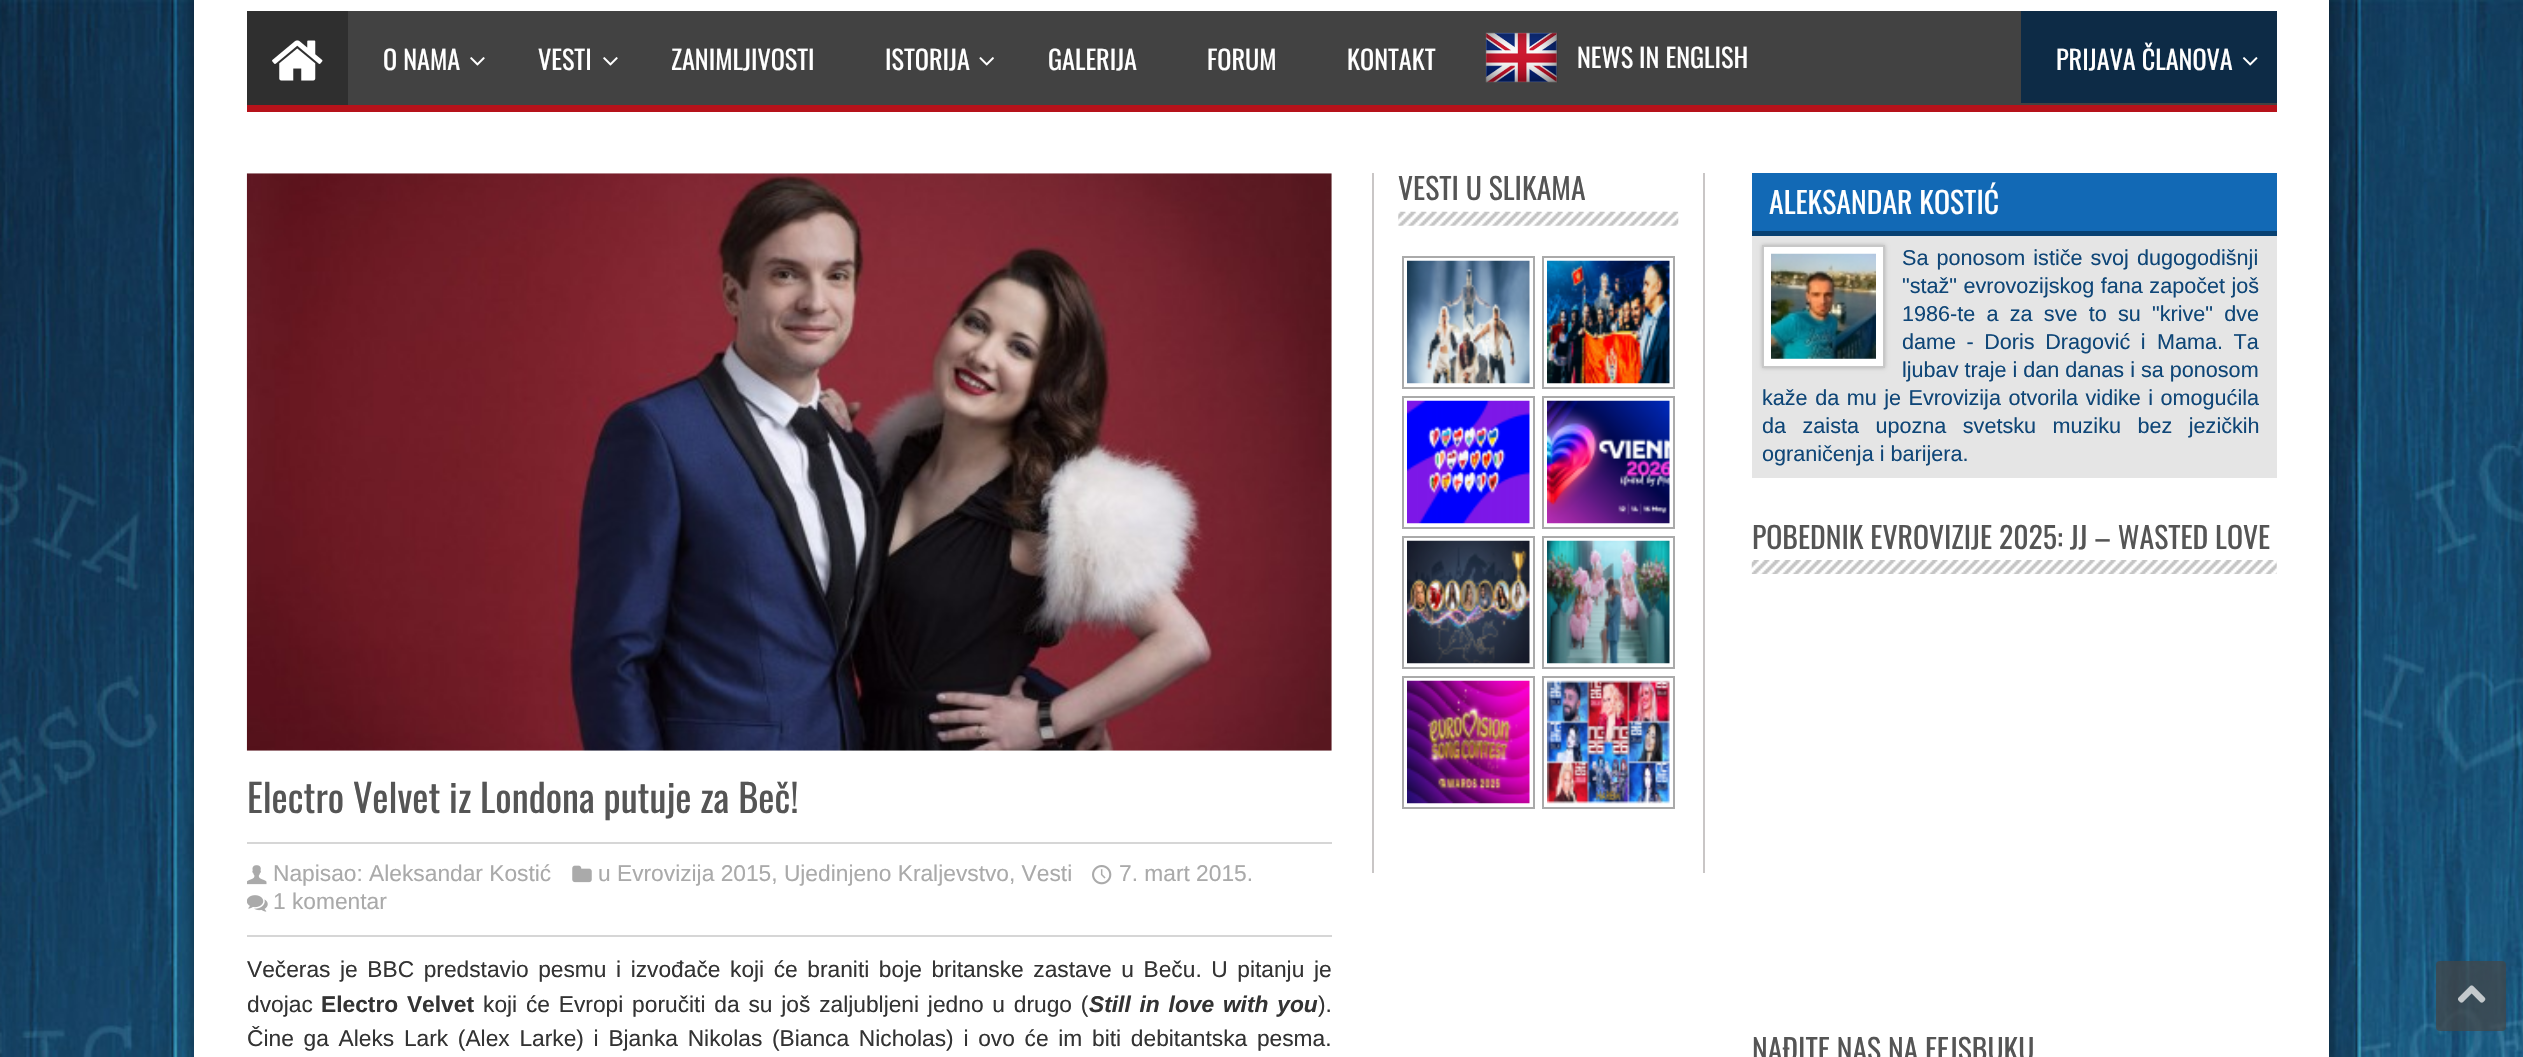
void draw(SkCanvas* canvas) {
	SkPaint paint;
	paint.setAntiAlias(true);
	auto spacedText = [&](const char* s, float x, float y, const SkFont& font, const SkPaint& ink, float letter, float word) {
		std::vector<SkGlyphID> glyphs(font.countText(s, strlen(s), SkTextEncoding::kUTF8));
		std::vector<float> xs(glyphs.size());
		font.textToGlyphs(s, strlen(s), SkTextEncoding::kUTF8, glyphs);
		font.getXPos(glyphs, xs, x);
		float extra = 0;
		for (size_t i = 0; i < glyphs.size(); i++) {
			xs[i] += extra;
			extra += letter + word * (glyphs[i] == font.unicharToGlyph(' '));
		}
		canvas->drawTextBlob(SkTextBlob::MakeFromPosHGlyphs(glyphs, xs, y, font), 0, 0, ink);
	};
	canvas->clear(0xffffffff);
	canvas->drawImageRect(SkImages::DeferredFromEncodedData(SkData::MakeFromFileName("img1.png")), SkRect::MakeXYWH(0, 0, 2523, 1057), SkSamplingOptions());
	paint.setColor(0x80000000);
	paint.setMaskFilter(SkMaskFilter::MakeBlur(kNormal_SkBlurStyle, 9));
	canvas->drawRect(SkRect::MakeXYWH(194, -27, 2135, 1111), paint);
	paint.setMaskFilter(nullptr);
	paint.setColor(0xffffffff);
	canvas->drawRect(SkRect::MakeXYWH(194, 0, 2135, 1057), paint);
	paint.setColor(0xffb6121a);
	canvas->drawRect(SkRect::MakeXYWH(247, 105, 2030, 7), paint);
	paint.setColor(0xff424242);
	canvas->drawRect(SkRect::MakeXYWH(348, 11, 1929, 94), paint);
	paint.setColor(0xff2f2f2f);
	canvas->drawRect(SkRect::MakeXYWH(247, 11, 101, 94), paint);
	canvas->drawImageRect(SkImages::DeferredFromEncodedData(SkData::MakeFromFileName("img2.png")), SkRect::MakeXYWH(272, 40, 51, 41), SkSamplingOptions());
	SkFont f1(fontMgr->matchFamilyStyle("Oswald", SkFontStyle::Normal()), 26.25);
	f1.setSubpixel(true);
	paint.setColor(0xffffffff);
	canvas->drawString("O NAMA", 383, 70, f1, paint);
	canvas->drawImageRect(SkImages::DeferredFromEncodedData(SkData::MakeFromFileName("img3.png")), SkRect::MakeXYWH(470, 57, 15, 9), SkSamplingOptions());
	canvas->drawString("VESTI", 538, 70, f1, paint);
	canvas->drawImageRect(SkImages::DeferredFromEncodedData(SkData::MakeFromFileName("img3.png")), SkRect::MakeXYWH(603, 57, 15, 9), SkSamplingOptions());
	canvas->drawString("ZANIMLJIVOSTI", 671, 70, f1, paint);
	canvas->drawString("ISTORIJA", 885, 70, f1, paint);
	canvas->drawImageRect(SkImages::DeferredFromEncodedData(SkData::MakeFromFileName("img4.png")), SkRect::MakeXYWH(979, 57, 15, 9), SkSamplingOptions());
	canvas->drawString("GALERIJA", 1048, 70, f1, paint);
	canvas->drawString("FORUM", 1207, 70, f1, paint);
	canvas->drawString("KONTAKT", 1347, 70, f1, paint);
	canvas->drawImageRect(SkImages::DeferredFromEncodedData(SkData::MakeFromFileName("img5.png")), SkRect::MakeXYWH(1485, 32, 73, 51), SkSamplingOptions());
	canvas->drawString("NEWS IN ENGLISH", 1577, 68, f1, paint);
	paint.setColor(0xff0d2b46);
	canvas->drawRect(SkRect::MakeXYWH(2021, 11, 256, 92), paint);
	paint.setColor(0xffffffff);
	canvas->drawString("PRIJAVA ČLANOVA", 2056, 70, f1, paint);
	canvas->drawImageRect(SkImages::DeferredFromEncodedData(SkData::MakeFromFileName("img6.png")), SkRect::MakeXYWH(2242, 57, 16, 9), SkSamplingOptions());
	paint.setColor(0xffc9c6c6);
	canvas->drawRect(SkRect::MakeXYWH(1703, 173, 2, 700), paint);
	canvas->drawRect(SkRect::MakeXYWH(1372, 173, 2, 700), paint);
	SkFont f2(fontMgr->matchFamilyStyle("Oswald", SkFontStyle::Normal()), 29.75);
	f2.setSubpixel(true);
	paint.setColor(0xff555555);
	canvas->drawString("VESTI U SLIKAMA", 1398, 200, f2, paint);
	canvas->drawImageRect(SkImages::DeferredFromEncodedData(SkData::MakeFromFileName("img7.png")), SkRect::MakeXYWH(1398, 211, 281, 15), SkSamplingOptions());
	paint.setStroke(true);
	paint.setStrokeWidth(2);
	paint.setColor(0xffaaaaaa);
	canvas->drawRect(SkRect::MakeXYWH(1403, 257, 131, 131), paint);
	canvas->drawImageRect(SkImages::DeferredFromEncodedData(SkData::MakeFromFileName("img8.png")), SkRect::MakeXYWH(1407, 260, 123, 124), SkSamplingOptions());
	canvas->drawRect(SkRect::MakeXYWH(1543, 257, 131, 131), paint);
	canvas->drawImageRect(SkImages::DeferredFromEncodedData(SkData::MakeFromFileName("img9.png")), SkRect::MakeXYWH(1547, 260, 123, 124), SkSamplingOptions());
	canvas->drawRect(SkRect::MakeXYWH(1403, 397, 131, 131), paint);
	canvas->drawImageRect(SkImages::DeferredFromEncodedData(SkData::MakeFromFileName("img10.png")), SkRect::MakeXYWH(1407, 400, 123, 124), SkSamplingOptions());
	canvas->drawRect(SkRect::MakeXYWH(1543, 397, 131, 131), paint);
	canvas->drawImageRect(SkImages::DeferredFromEncodedData(SkData::MakeFromFileName("img11.png")), SkRect::MakeXYWH(1547, 400, 123, 124), SkSamplingOptions());
	canvas->drawRect(SkRect::MakeXYWH(1403, 537, 131, 131), paint);
	canvas->drawImageRect(SkImages::DeferredFromEncodedData(SkData::MakeFromFileName("img12.png")), SkRect::MakeXYWH(1407, 540, 123, 124), SkSamplingOptions());
	canvas->drawRect(SkRect::MakeXYWH(1543, 537, 131, 131), paint);
	canvas->drawImageRect(SkImages::DeferredFromEncodedData(SkData::MakeFromFileName("img13.png")), SkRect::MakeXYWH(1547, 540, 123, 124), SkSamplingOptions());
	canvas->drawRect(SkRect::MakeXYWH(1403, 677, 131, 131), paint);
	canvas->drawImageRect(SkImages::DeferredFromEncodedData(SkData::MakeFromFileName("img14.png")), SkRect::MakeXYWH(1407, 680, 123, 124), SkSamplingOptions());
	canvas->drawRect(SkRect::MakeXYWH(1543, 677, 131, 131), paint);
	canvas->drawImageRect(SkImages::DeferredFromEncodedData(SkData::MakeFromFileName("img15.png")), SkRect::MakeXYWH(1547, 680, 123, 124), SkSamplingOptions());
	canvas->drawImageRect(SkImages::DeferredFromEncodedData(SkData::MakeFromFileName("img16.png")), SkRect::MakeXYWH(246, 173, 1086, 578), SkSamplingOptions());
	SkFont f3(fontMgr->matchFamilyStyle("Oswald", SkFontStyle::Normal()), 38.5);
	f3.setSubpixel(true);
	paint.setStroke(false);
	paint.setColor(0xff555555);
	canvas->drawString("Electro Velvet iz Londona putuje za Beč!", 247, 813, f3, paint);
	paint.setColor(0xffd6d6d6);
	canvas->drawRect(SkRect::MakeXYWH(247, 842, 1085, 2), paint);
	canvas->drawRect(SkRect::MakeXYWH(247, 935, 1085, 2), paint);
	canvas->drawImageRect(SkImages::DeferredFromEncodedData(SkData::MakeFromFileName("img17.png")), SkRect::MakeXYWH(247, 865, 20, 20), SkSamplingOptions());
	SkFont f4(fontMgr->matchFamilyStyle("Liberation Sans", SkFontStyle::Normal()), 22.75);
	f4.setSubpixel(true);
	paint.setColor(0xffaaaaaa);
	canvas->drawString("Napisao: Aleksandar Kostić", 273, 881, f4, paint);
	canvas->drawImageRect(SkImages::DeferredFromEncodedData(SkData::MakeFromFileName("img18.png")), SkRect::MakeXYWH(572, 865, 20, 18), SkSamplingOptions());
	canvas->drawString("u Evrovizija 2015, Ujedinjeno Kraljevstvo, Vesti", 598, 881, f4, paint);
	canvas->drawImageRect(SkImages::DeferredFromEncodedData(SkData::MakeFromFileName("img19.png")), SkRect::MakeXYWH(1092, 865, 20, 20), SkSamplingOptions());
	canvas->drawString("7. mart 2015.", 1119, 881, f4, paint);
	canvas->drawImageRect(SkImages::DeferredFromEncodedData(SkData::MakeFromFileName("img20.png")), SkRect::MakeXYWH(247, 895, 21, 17), SkSamplingOptions());
	canvas->drawString("1 komentar", 273, 909, f4, paint);
	paint.setColor(0xff333333);
	spacedText("Večeras je BBC predstavio pesmu i izvođače koji će braniti boje britanske zastave u Beču. U pitanju je", 247, 977, f4, paint, 0, 3.25);
	canvas->drawString("dvojac", 247, 1012, f4, paint);
	SkFont f5(fontMgr->matchFamilyStyle("Liberation Sans", SkFontStyle::Bold()), 22.75);
	f5.setSubpixel(true);
	spacedText("Electro Velvet", 321, 1012, f5, paint, 0, 2.5);
	spacedText("koji će Evropi poručiti da su još zaljubljeni jedno u drugo (", 483, 1012, f4, paint, 0, 2.5);
	SkFont f6(fontMgr->matchFamilyStyle("Liberation Sans", SkFontStyle::BoldItalic()), 22.75);
	f6.setSubpixel(true);
	spacedText("Still in love with you", 1089, 1012, f6, paint, 0, 2.5);
	canvas->drawString(").", 1318, 1012, f4, paint);
	spacedText("Čine ga Aleks Lark (Alex Larke) i Bjanka Nikolas (Bianca Nicholas) i ovo će im biti debitantska pesma.", 247, 1046, f4, paint, 0, 3.4);
	paint.setColor(0xff1269b5);
	canvas->drawRect(SkRect::MakeXYWH(1752, 173, 525, 58), paint);
	paint.setColor(0xff084172);
	canvas->drawRect(SkRect::MakeXYWH(1752, 231, 525, 5), paint);
	paint.setColor(0xffffffff);
	canvas->drawString("ALEKSANDAR KOSTIĆ", 1769, 214, f2, paint);
	paint.setColor(0xffe5e5e5);
	canvas->drawRect(SkRect::MakeXYWH(1752, 236, 525, 242), paint);
	paint.setColor(0xffb5b5b5);
	paint.setMaskFilter(SkMaskFilter::MakeBlur(kNormal_SkBlurStyle, 2));
	canvas->drawRect(SkRect::MakeXYWH(1762, 245, 123, 123), paint);
	paint.setMaskFilter(nullptr);
	paint.setColor(0xffffffff);
	canvas->drawRect(SkRect::MakeXYWH(1763, 246, 121, 121), paint);
	paint.setStroke(true);
	paint.setColor(0xffc8c8c8);
	canvas->drawRect(SkRect::MakeXYWH(1763, 246, 121, 121), paint);
	canvas->drawImageRect(SkImages::DeferredFromEncodedData(SkData::MakeFromFileName("img21.png")), SkRect::MakeXYWH(1771, 253, 105, 106), SkSamplingOptions());
	SkFont f7(fontMgr->matchFamilyStyle("Liberation Sans", SkFontStyle::Normal()), 21.6);
	f7.setSubpixel(true);
	paint.setStroke(false);
	paint.setColor(0xff0f4677);
	spacedText("Sa ponosom ističe svoj dugogodišnji", 1902, 265, f7, paint, 0, 2);
	spacedText("\"staž\" evrovozijskog fana započet još", 1902, 293, f7, paint, 0, 0.5);
	spacedText("1986-te a za sve to su \"krive\" dve", 1902, 321, f7, paint, 0, 5.25);
	spacedText("dame - Doris Dragović i", 1902, 349, f7, paint, 0, 4.5);
	spacedText("Mama. Ta", 2157, 349, f7, paint, 0, 4.5);
	canvas->drawString("ljubav traje i dan danas i sa ponosom", 1902, 377, f7, paint);
	spacedText("kaže da mu je Evrovizija otvorila vidike i omogućila", 1762, 405, f7, paint, 0, 1.5);
	spacedText("da zaista upozna svetsku muziku bez jezičkih", 1762, 433, f7, paint, 0, 10.5);
	canvas->drawString("ograničenja i barijera.", 1762, 461, f7, paint);
	paint.setColor(0xff555555);
	canvas->drawString("POBEDNIK EVROVIZIJE 2025: JJ – WASTED LOVE", 1752, 549, f2, paint);
	canvas->drawImageRect(SkImages::DeferredFromEncodedData(SkData::MakeFromFileName("img22.png")), SkRect::MakeXYWH(1751, 560, 526, 14), SkSamplingOptions());
	canvas->drawString("NAĐITE NAS NA FEJSBUKU", 1752, 1061, f2, paint);
	paint.setColor(0xb3444444);
	canvas->drawRoundRect(SkRect::MakeXYWH(2436, 961, 70, 70), 4, 4, paint);
	canvas->drawImageRect(SkImages::DeferredFromEncodedData(SkData::MakeFromFileName("img23.png")), SkRect::MakeXYWH(2458, 985, 28, 18), SkSamplingOptions());
}
